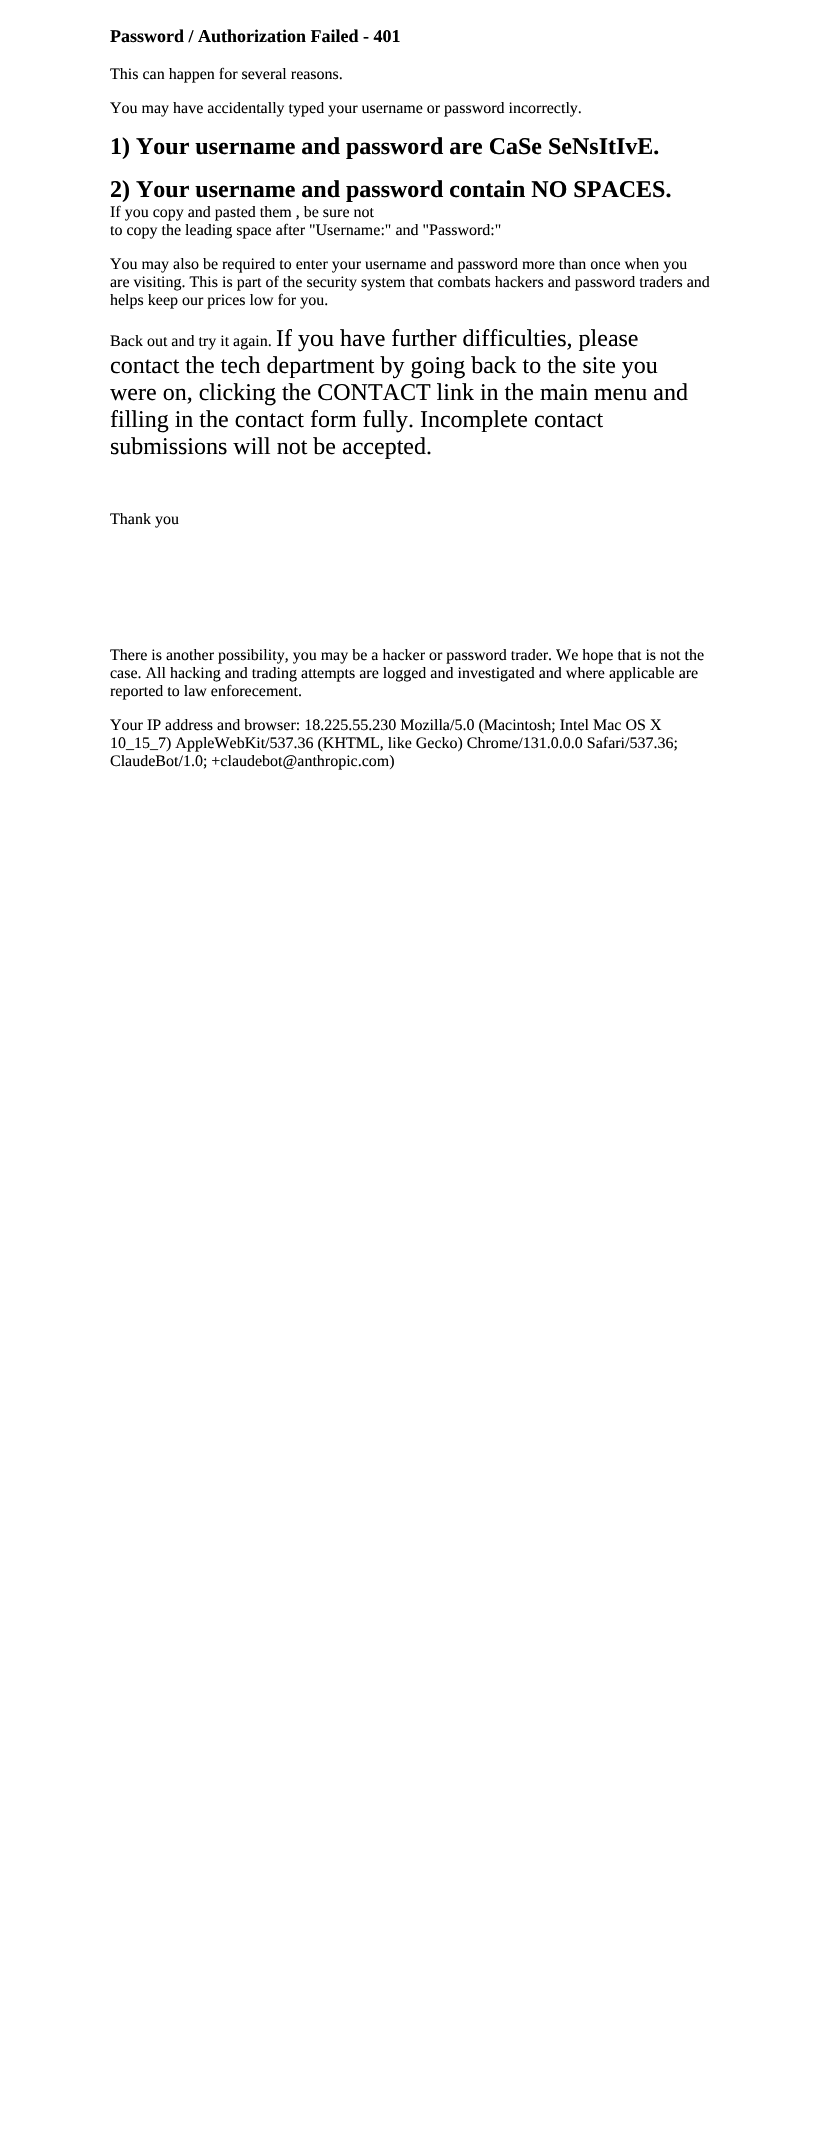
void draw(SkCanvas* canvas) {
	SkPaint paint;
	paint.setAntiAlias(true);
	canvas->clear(0xffffffff);
	SkFont f1(fontMgr->matchFamilyStyle("Liberation Serif", SkFontStyle::Bold()), 18);
	f1.setSubpixel(true);
	paint.setColor(0xff000000);
	canvas->drawString("Password / Authorization Failed - 401", 110, 42, f1, paint);
	SkFont f2(fontMgr->matchFamilyStyle("Liberation Serif", SkFontStyle::Normal()), 16);
	f2.setSubpixel(true);
	canvas->drawString("This can happen for several reasons.", 110, 79, f2, paint);
	canvas->drawString("You may have accidentally typed your username or password incorrectly.", 110, 113, f2, paint);
	SkFont f3(fontMgr->matchFamilyStyle("Liberation Serif", SkFontStyle::Bold()), 24);
	f3.setSubpixel(true);
	canvas->drawString("1) Your username and password are CaSe SeNsItIvE.", 110, 154, f3, paint);
	canvas->drawString("2) Your username and password contain NO SPACES.", 110, 197, f3, paint);
	canvas->drawString("If you copy and pasted them , be sure not", 110, 217, f2, paint);
	canvas->drawString("to copy the leading space after \"Username:\" and \"Password:\"", 110, 235, f2, paint);
	canvas->drawString("You may also be required to enter your username and password more than once when you", 110, 269, f2, paint);
	canvas->drawString("are visiting. This is part of the security system that combats hackers and password traders and", 110, 287, f2, paint);
	canvas->drawString("helps keep our prices low for you.", 110, 305, f2, paint);
	canvas->drawString("Back out and try it again.", 110, 346, f2, paint);
	SkFont f4(fontMgr->matchFamilyStyle("Liberation Serif", SkFontStyle::Normal()), 24);
	f4.setSubpixel(true);
	canvas->drawString("If you have further difficulties, please", 276, 346, f4, paint);
	canvas->drawString("contact the tech department by going back to the site you", 110, 373, f4, paint);
	canvas->drawString("were on, clicking the CONTACT link in the main menu and", 110, 400, f4, paint);
	canvas->drawString("filling in the contact form fully. Incomplete contact", 110, 427, f4, paint);
	canvas->drawString("submissions will not be accepted.", 110, 454, f4, paint);
	canvas->drawString("Thank you", 110, 524, f2, paint);
	canvas->drawString("There is another possibility, you may be a hacker or password trader. We hope that is not the", 110, 660, f2, paint);
	canvas->drawString("case. All hacking and trading attempts are logged and investigated and where applicable are", 110, 678, f2, paint);
	canvas->drawString("reported to law enforecement.", 110, 696, f2, paint);
	canvas->drawString("Your IP address and browser: 18.225.55.230 Mozilla/5.0 (Macintosh; Intel Mac OS X", 110, 730, f2, paint);
	canvas->drawString("10_15_7) AppleWebKit/537.36 (KHTML, like Gecko) Chrome/131.0.0.0 Safari/537.36;", 110, 748, f2, paint);
	canvas->drawString("ClaudeBot/1.0; +claudebot@anthropic.com)", 110, 766, f2, paint);
}
